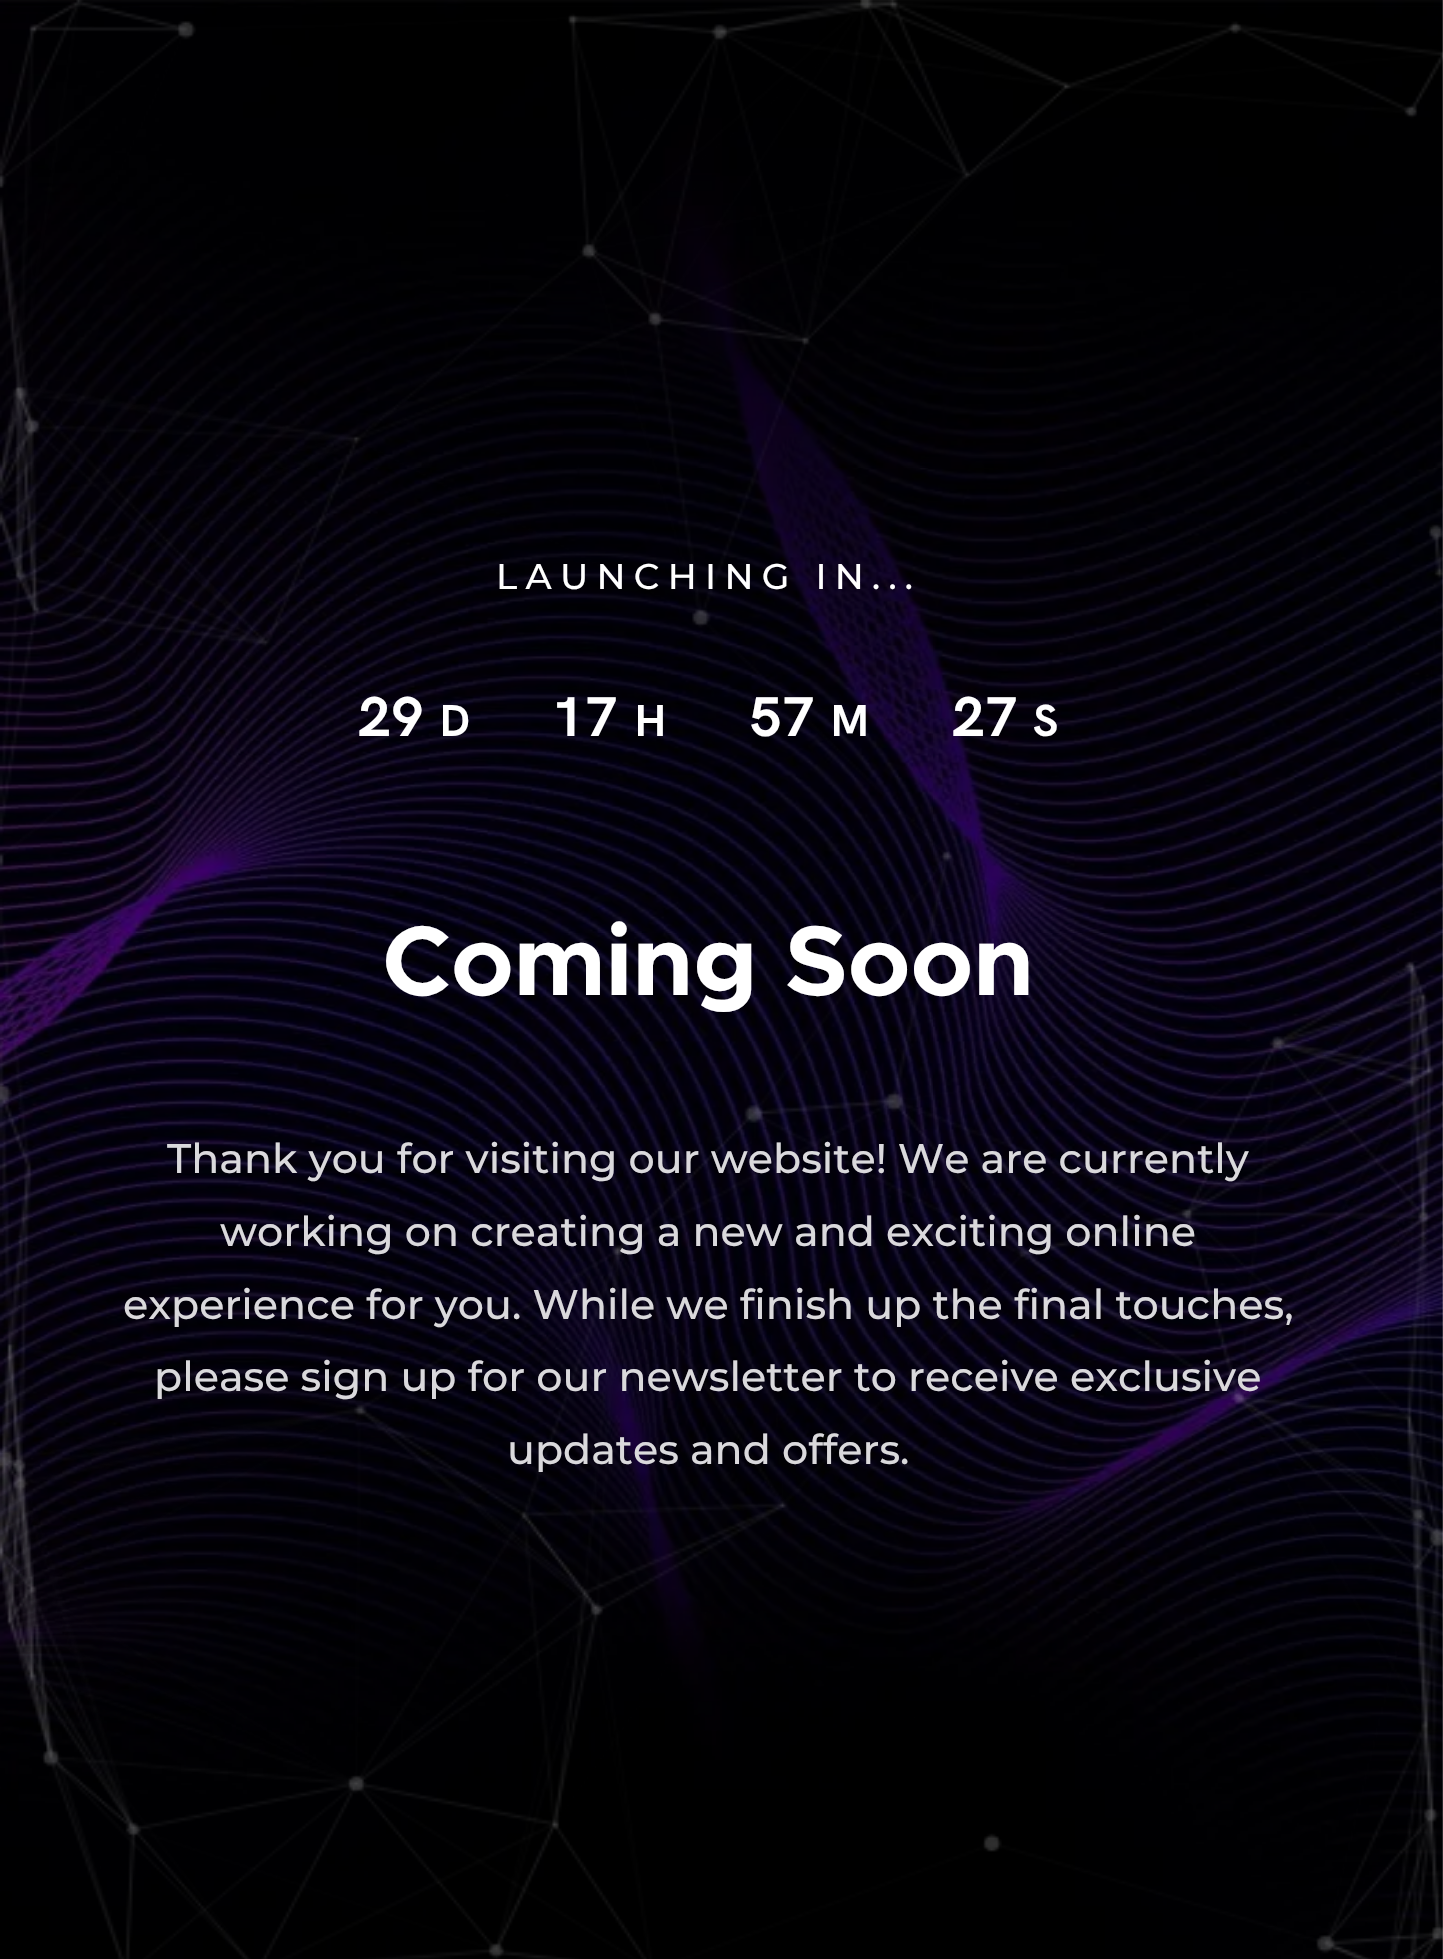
void draw(SkCanvas* canvas) {
	SkPaint paint;
	paint.setAntiAlias(true);
	auto spacedText = [&](const char* s, float x, float y, const SkFont& font, const SkPaint& ink, float letter, float word) {
		std::vector<SkGlyphID> glyphs(font.countText(s, strlen(s), SkTextEncoding::kUTF8));
		std::vector<float> xs(glyphs.size());
		font.textToGlyphs(s, strlen(s), SkTextEncoding::kUTF8, glyphs);
		font.getXPos(glyphs, xs, x);
		float extra = 0;
		for (size_t i = 0; i < glyphs.size(); i++) {
			xs[i] += extra;
			extra += letter + word * (glyphs[i] == font.unicharToGlyph(' '));
		}
		canvas->drawTextBlob(SkTextBlob::MakeFromPosHGlyphs(glyphs, xs, y, font), 0, 0, ink);
	};
	canvas->clear(0xffffffff);
	canvas->drawImageRect(SkImages::DeferredFromEncodedData(SkData::MakeFromFileName("img1.png")), SkRect::MakeXYWH(0, 0, 1443, 1959), SkSamplingOptions());
	canvas->drawImageRect(SkImages::DeferredFromEncodedData(SkData::MakeFromFileName("img2.png")), SkRect::MakeXYWH(0, 0, 1443, 1959), SkSamplingOptions());
	SkFont f1(fontMgr->matchFamilyStyle("Montserrat", SkFontStyle(100, SkFontStyle::kNormal_Width, SkFontStyle::kUpright_Slant)), 35.75);
	f1.setSubpixel(true);
	paint.setColor(0xffffffff);
	spacedText("LAUNCHING IN...", 496, 589, f1, paint, 8.25, 0);
	SkFont f2(fontMgr->matchFamilyStyle("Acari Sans", SkFontStyle::Bold()), 55);
	f2.setSubpixel(true);
	canvas->drawString("29", 358, 736, f2, paint);
	SkFont f3(fontMgr->matchFamilyStyle("Acari Sans", SkFontStyle::Bold()), 44);
	f3.setSubpixel(true);
	canvas->drawString("D", 439, 736, f3, paint);
	canvas->drawString("17", 552, 736, f2, paint);
	canvas->drawString("H", 634, 736, f3, paint);
	canvas->drawString("57", 749, 736, f2, paint);
	canvas->drawString("M", 830, 736, f3, paint);
	canvas->drawString("27", 952, 736, f2, paint);
	canvas->drawString("S", 1033, 736, f3, paint);
	SkFont f4(fontMgr->matchFamilyStyle("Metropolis", SkFontStyle::Bold()), 99);
	f4.setSubpixel(true);
	canvas->drawString("Coming Soon", 382, 995, f4, paint);
	SkFont f5(fontMgr->matchFamilyStyle("Montserrat", SkFontStyle(100, SkFontStyle::kNormal_Width, SkFontStyle::kUpright_Slant)), 41.25);
	f5.setSubpixel(true);
	paint.setColor(0xffdad9dc);
	canvas->drawString("Thank you for visiting our website! We are currently", 167, 1173, f5, paint);
	canvas->drawString("working on creating a new and exciting online", 220, 1246, f5, paint);
	canvas->drawString("experience for you. While we finish up the final touches,", 123, 1319, f5, paint);
	canvas->drawString("please sign up for our newsletter to receive exclusive", 154, 1391, f5, paint);
	canvas->drawString("updates and offers.", 507, 1464, f5, paint);
}
